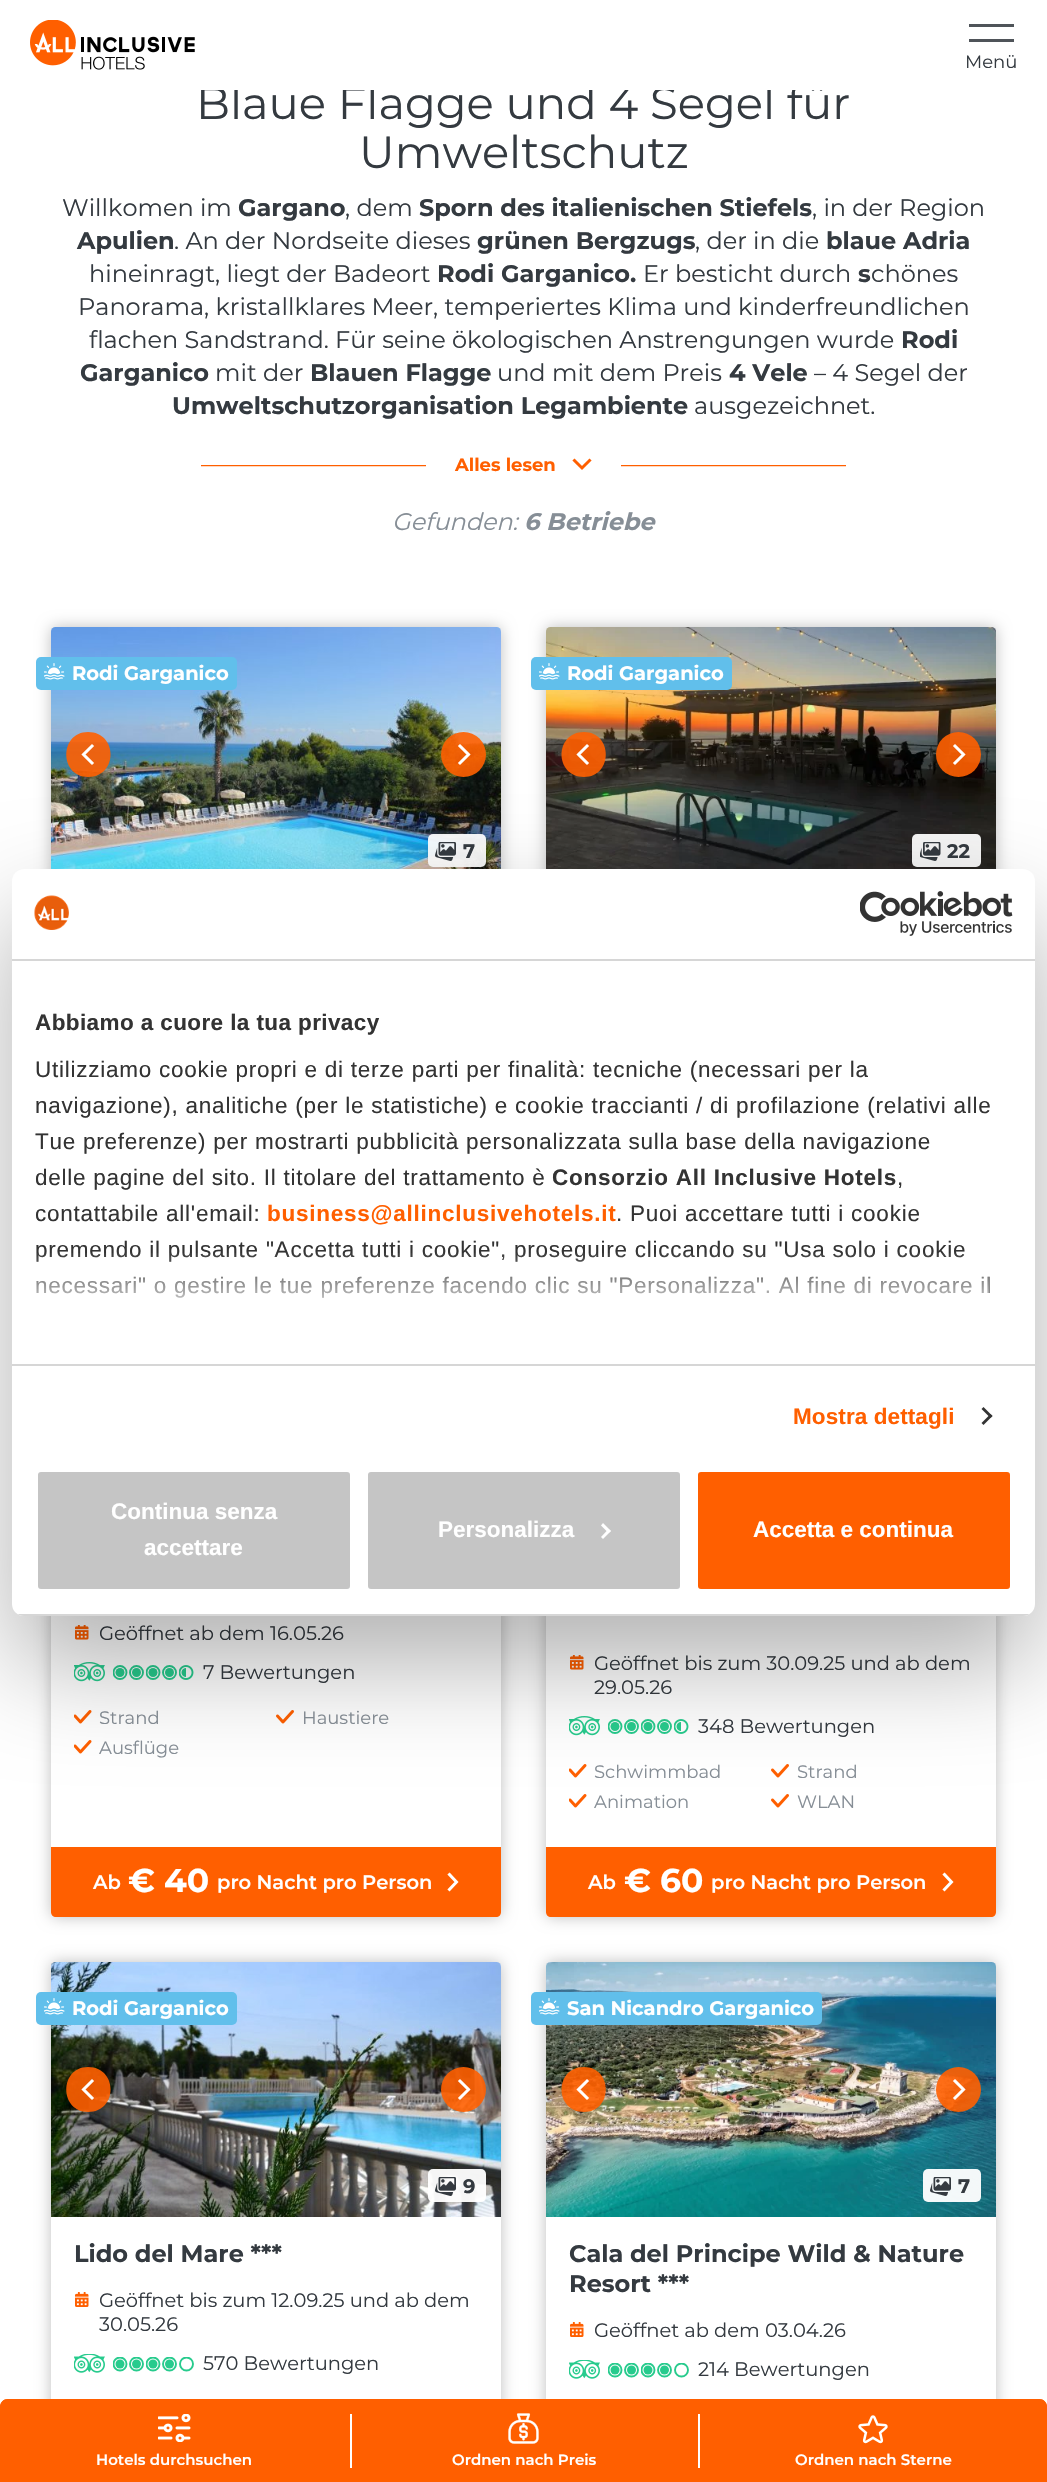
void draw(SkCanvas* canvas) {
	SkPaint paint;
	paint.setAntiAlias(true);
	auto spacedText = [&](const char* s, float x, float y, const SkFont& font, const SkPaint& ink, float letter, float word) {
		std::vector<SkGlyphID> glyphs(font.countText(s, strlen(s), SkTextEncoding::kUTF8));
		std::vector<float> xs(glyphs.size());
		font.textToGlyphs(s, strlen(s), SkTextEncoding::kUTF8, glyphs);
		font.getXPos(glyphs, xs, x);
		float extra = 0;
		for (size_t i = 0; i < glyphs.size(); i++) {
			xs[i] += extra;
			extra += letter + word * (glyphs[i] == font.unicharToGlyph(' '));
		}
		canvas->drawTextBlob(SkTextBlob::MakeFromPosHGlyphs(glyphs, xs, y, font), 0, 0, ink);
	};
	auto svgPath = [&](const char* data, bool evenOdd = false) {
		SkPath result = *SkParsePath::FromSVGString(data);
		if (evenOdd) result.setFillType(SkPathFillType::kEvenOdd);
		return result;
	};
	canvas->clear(0xffffffff);
	SkFont f1(fontMgr->matchFamilyStyle("Montserrat", SkFontStyle::Normal()), 45);
	f1.setSubpixel(true);
	paint.setColor(0xff343a40);
	canvas->drawString("Blaue Flagge und 4 Segel für", 196, 119, f1, paint);
	paint.setColor(0xffffffff);
	canvas->drawRect(SkRect::MakeXYWH(201, 85, 623, 5), paint);
	canvas->drawImageRect(SkImages::DeferredFromEncodedData(SkData::MakeFromFileName("img1.png")), SkRect::MakeXYWH(30, 20, 165, 50), SkSamplingOptions());
	paint.setColor(0xff4f5459);
	canvas->drawRect(SkRect::MakeXYWH(969, 24, 45, 3), paint);
	canvas->drawRect(SkRect::MakeXYWH(969, 39, 45, 3), paint);
	SkFont f2(fontMgr->matchFamilyStyle("Montserrat", SkFontStyle::Normal()), 18);
	f2.setSubpixel(true);
	paint.setColor(0xff343a40);
	canvas->drawString("Menü", 965, 68, f2, paint);
	canvas->drawString("Umweltschutz", 359, 168, f1, paint);
	SkFont f3(fontMgr->matchFamilyStyle("Montserrat", SkFontStyle::Normal()), 24);
	f3.setSubpixel(true);
	canvas->drawString("Willkomen im", 62, 216, f3, paint);
	SkFont f4(fontMgr->matchFamilyStyle("Montserrat", SkFontStyle::Bold()), 24);
	f4.setSubpixel(true);
	canvas->drawString("Gargano", 238, 216, f4, paint);
	canvas->drawString(", dem", 345, 216, f3, paint);
	canvas->drawString("Sporn des italienischen Stiefels", 419, 216, f4, paint);
	canvas->drawString(", in der Region", 812, 216, f3, paint);
	canvas->drawString("Apulien", 77, 249, f4, paint);
	canvas->drawString(". An der Nordseite dieses", 174, 249, f3, paint);
	canvas->drawString("grünen Bergzugs", 477, 249, f4, paint);
	canvas->drawString(", der in die", 695, 249, f3, paint);
	canvas->drawString("blaue Adria", 826, 249, f4, paint);
	canvas->drawString("hineinragt, liegt der Badeort", 89, 282, f3, paint);
	canvas->drawString("Rodi Garganico.", 437, 282, f4, paint);
	canvas->drawString("Er besticht durch", 643, 282, f3, paint);
	canvas->drawString("s", 858, 282, f4, paint);
	canvas->drawString("chönes", 871, 282, f3, paint);
	canvas->drawString("Panorama, kristallklares Meer, temperiertes Klima und kinderfreundlichen", 78, 315, f3, paint);
	canvas->drawString("flachen Sandstrand. Für seine ökologischen Anstrengungen wurde", 89, 348, f3, paint);
	canvas->drawString("Rodi", 901, 348, f4, paint);
	canvas->drawString("Garganico", 80, 381, f4, paint);
	canvas->drawString("mit der", 215, 381, f3, paint);
	canvas->drawString("Blauen Flagge", 310, 381, f4, paint);
	canvas->drawString("und mit dem Preis", 497, 381, f3, paint);
	canvas->drawString("4 Vele", 729, 381, f4, paint);
	canvas->drawString("– 4 Segel der", 814, 381, f3, paint);
	canvas->drawString("Umweltschutzorganisation Legambiente", 172, 414, f4, paint);
	canvas->drawString("ausgezeichnet.", 694, 414, f3, paint);
	canvas->drawImageRect(SkImages::DeferredFromEncodedData(SkData::MakeFromFileName("img2.png")), SkRect::MakeXYWH(201, 465, 645, 2), SkSamplingOptions());
	SkFont f5(fontMgr->matchFamilyStyle("Montserrat", SkFontStyle::Bold()), 18);
	f5.setSubpixel(true);
	paint.setColor(0xffff5f00);
	canvas->drawString("Alles lesen", 455, 471, f5, paint);
	paint.setStroke(true);
	paint.setStrokeWidth(3);
	paint.setStrokeCap(SkPaint::kSquare_Cap);
	canvas->drawPath(svgPath("M589.5 460.5L582 468L574.5 460.5"), paint);
	SkFont f6(fontMgr->matchFamilyStyle("Montserrat", SkFontStyle::Italic()), 24);
	f6.setSubpixel(true);
	paint.setStroke(false);
	paint.setColor(0xff868e96);
	canvas->drawString("Gefunden:", 392, 530, f6, paint);
	SkFont f7(fontMgr->matchFamilyStyle("Montserrat", SkFontStyle::BoldItalic()), 24);
	f7.setSubpixel(true);
	canvas->drawString("6 Betriebe", 524, 530, f7, paint);
	paint.setColor(0x40000000);
	paint.setMaskFilter(SkMaskFilter::MakeBlur(kNormal_SkBlurStyle, 7.5));
	canvas->drawRoundRect(SkRect::MakeXYWH(51, 1962, 450, 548), 5, 5, paint);
	paint.setMaskFilter(nullptr);
	paint.setColor(0xffffffff);
	canvas->drawRoundRect(SkRect::MakeXYWH(51, 1962, 450, 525), 5, 5, paint);
	paint.setColor(0x40000000);
	paint.setMaskFilter(SkMaskFilter::MakeBlur(kNormal_SkBlurStyle, 7.5));
	canvas->drawRoundRect(SkRect::MakeXYWH(546, 1962, 450, 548), 5, 5, paint);
	paint.setMaskFilter(nullptr);
	paint.setColor(0xffffffff);
	canvas->drawRoundRect(SkRect::MakeXYWH(546, 1962, 450, 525), 5, 5, paint);
	paint.setColor(0xffff5f00);
	canvas->drawPath(svgPath("M8 2399H1039C1043.5 2399 1047 2402.5 1047 2407V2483H0V2407C0 2402.5 3.5 2399 8 2399Z"), paint);
	canvas->drawPath(svgPath("M8 2399H350V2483H0V2407C0 2402.5 3.5 2399 8 2399Z"), paint);
	canvas->drawImageRect(SkImages::DeferredFromEncodedData(SkData::MakeFromFileName("img3.png")), SkRect::MakeXYWH(158, 2414, 33, 28), SkSamplingOptions());
	SkFont f8(fontMgr->matchFamilyStyle("Montserrat", SkFontStyle(600, SkFontStyle::kNormal_Width, SkFontStyle::kUpright_Slant)), 15);
	f8.setSubpixel(true);
	paint.setColor(0xffffffff);
	canvas->drawString("Hotels durchsuchen", 96, 2465, f8, paint);
	canvas->drawImageRect(SkImages::DeferredFromEncodedData(SkData::MakeFromFileName("img4.png")), SkRect::MakeXYWH(508, 2413, 31, 31), SkSamplingOptions());
	canvas->drawRect(SkRect::MakeXYWH(350, 2414, 2, 54), paint);
	canvas->drawString("Ordnen nach Preis", 452, 2465, f8, paint);
	paint.setColor(0xffff5f00);
	canvas->drawPath(svgPath("M698 2399H1039C1043.5 2399 1047 2402.5 1047 2407V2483H698Z"), paint);
	canvas->drawImageRect(SkImages::DeferredFromEncodedData(SkData::MakeFromFileName("img5.png")), SkRect::MakeXYWH(858, 2415, 30, 29), SkSamplingOptions());
	paint.setColor(0xffffffff);
	canvas->drawRect(SkRect::MakeXYWH(698, 2414, 2, 54), paint);
	canvas->drawString("Ordnen nach Sterne", 795, 2465, f8, paint);
	paint.setColor(0x40000000);
	paint.setMaskFilter(SkMaskFilter::MakeBlur(kNormal_SkBlurStyle, 7.5));
	canvas->drawRoundRect(SkRect::MakeXYWH(51, 627, 450, 623), 5, 5, paint);
	paint.setMaskFilter(nullptr);
	canvas->drawImageRect(SkImages::DeferredFromEncodedData(SkData::MakeFromFileName("img6.png")), SkRect::MakeXYWH(51, 627, 450, 242), SkSamplingOptions());
	paint.setColor(0xff61bfeb);
	canvas->drawRoundRect(SkRect::MakeXYWH(36, 657, 201, 33), 5, 5, paint);
	canvas->drawImageRect(SkImages::DeferredFromEncodedData(SkData::MakeFromFileName("img7.png")), SkRect::MakeXYWH(44, 663, 21, 17), SkSamplingOptions());
	SkFont f9(fontMgr->matchFamilyStyle("Montserrat", SkFontStyle::Bold()), 19.5);
	f9.setSubpixel(true);
	paint.setColor(0xffffffff);
	canvas->drawString("Rodi Garganico", 72, 680, f9, paint);
	paint.setColor(0xe6ff5f00);
	canvas->drawPath(svgPath("M88 777C59 777 59 732 88 732C118 732 118 777 88 777Z"), paint);
	paint.setStroke(true);
	paint.setColor(0xffffffff);
	canvas->drawPath(svgPath("M92 763L83.5 754.5L92 746"), paint);
	paint.setStroke(false);
	paint.setColor(0xe6ff5f00);
	canvas->drawCircle(463.5, 754.5, 22.5, paint);
	paint.setStroke(true);
	paint.setColor(0xffffffff);
	canvas->drawPath(svgPath("M460 746L468.5 754.5L460 763"), paint);
	paint.setStroke(false);
	paint.setColor(0xf2ffffff);
	canvas->drawRoundRect(SkRect::MakeXYWH(428, 834, 58, 33), 5, 5, paint);
	canvas->drawImageRect(SkImages::DeferredFromEncodedData(SkData::MakeFromFileName("img8.png")), SkRect::MakeXYWH(435, 842, 21, 19), SkSamplingOptions());
	paint.setColor(0xff343a40);
	canvas->drawString("7", 463, 858, f9, paint);
	paint.setColor(0x40000000);
	paint.setMaskFilter(SkMaskFilter::MakeBlur(kNormal_SkBlurStyle, 7.5));
	canvas->drawRoundRect(SkRect::MakeXYWH(546, 627, 450, 623), 5, 5, paint);
	paint.setMaskFilter(nullptr);
	canvas->drawImageRect(SkImages::DeferredFromEncodedData(SkData::MakeFromFileName("img9.png")), SkRect::MakeXYWH(546, 627, 450, 242), SkSamplingOptions());
	paint.setColor(0xff61bfeb);
	canvas->drawRoundRect(SkRect::MakeXYWH(531, 657, 201, 33), 5, 5, paint);
	canvas->drawImageRect(SkImages::DeferredFromEncodedData(SkData::MakeFromFileName("img7.png")), SkRect::MakeXYWH(539, 663, 21, 17), SkSamplingOptions());
	paint.setColor(0xffffffff);
	canvas->drawString("Rodi Garganico", 567, 680, f9, paint);
	paint.setColor(0xe6ff5f00);
	canvas->drawPath(svgPath("M584 777C554 777 554 732 584 732C613 732 613 777 584 777Z"), paint);
	paint.setStroke(true);
	paint.setColor(0xffffffff);
	canvas->drawPath(svgPath("M587 763L578.5 754.5L587 746"), paint);
	paint.setStroke(false);
	paint.setColor(0xe6ff5f00);
	canvas->drawCircle(958.5, 754.5, 22.5, paint);
	paint.setStroke(true);
	paint.setColor(0xffffffff);
	canvas->drawPath(svgPath("M955 746L963.5 754.5L955 763"), paint);
	paint.setStroke(false);
	paint.setColor(0xf2ffffff);
	canvas->drawRoundRect(SkRect::MakeXYWH(912, 834, 69, 33), 5, 5, paint);
	canvas->drawImageRect(SkImages::DeferredFromEncodedData(SkData::MakeFromFileName("img10.png")), SkRect::MakeXYWH(920, 842, 21, 19), SkSamplingOptions());
	paint.setColor(0xff343a40);
	canvas->drawString("22", 947, 858, f9, paint);
	paint.setColor(0x40000000);
	paint.setMaskFilter(SkMaskFilter::MakeBlur(kNormal_SkBlurStyle, 7.5));
	canvas->drawRoundRect(SkRect::MakeXYWH(51, 1295, 450, 622), 5, 5, paint);
	paint.setMaskFilter(nullptr);
	paint.setColor(0xffffffff);
	canvas->drawRoundRect(SkRect::MakeXYWH(51, 1295, 450, 622), 5, 5, paint);
	canvas->drawImageRect(SkImages::DeferredFromEncodedData(SkData::MakeFromFileName("img11.png")), SkRect::MakeXYWH(75, 1625, 14, 15), SkSamplingOptions());
	SkFont f10(fontMgr->matchFamilyStyle("Montserrat", SkFontStyle::Normal()), 19.5);
	f10.setSubpixel(true);
	paint.setColor(0xff343a40);
	canvas->drawString("Geöffnet ab dem 16.05.26", 99, 1640, f10, paint);
	canvas->drawImageRect(SkImages::DeferredFromEncodedData(SkData::MakeFromFileName("img12.png")), SkRect::MakeXYWH(74, 1662, 31, 20), SkSamplingOptions());
	canvas->save();
	canvas->clipRect(SkRect::MakeXYWH(113, 1665, 15, 15));
	paint.setStroke(true);
	paint.setStrokeWidth(1.9);
	paint.setStrokeCap(SkPaint::kButt_Cap);
	paint.setColor(0xff27cb8d);
	canvas->drawCircle(120, 1672.5, 6.5, paint);
	canvas->restore();
	canvas->drawCircle(136.5, 1672.5, 6.5, paint);
	canvas->save();
	canvas->clipRect(SkRect::MakeXYWH(146, 1665, 15, 15));
	canvas->drawCircle(153, 1672.5, 6.5, paint);
	canvas->restore();
	canvas->drawCircle(169.5, 1672.5, 6.5, paint);
	canvas->drawImageRect(SkImages::DeferredFromEncodedData(SkData::MakeFromFileName("img13.png")), SkRect::MakeXYWH(179, 1665, 15, 15), SkSamplingOptions());
	paint.setStroke(false);
	paint.setColor(0xff343a40);
	canvas->drawString("7 Bewertungen", 203, 1679, f10, paint);
	paint.setColor(0xff27cb8d);
	canvas->drawCircle(120, 1672.5, 4.5, paint);
	canvas->drawCircle(136.5, 1672.5, 4.5, paint);
	canvas->drawCircle(153, 1672.5, 4.5, paint);
	canvas->drawCircle(169.5, 1672.5, 4.5, paint);
	canvas->drawImageRect(SkImages::DeferredFromEncodedData(SkData::MakeFromFileName("img14.png")), SkRect::MakeXYWH(74, 1710, 18, 14), SkSamplingOptions());
	paint.setColor(0xff868e96);
	canvas->drawString("Strand", 99, 1724, f2, paint);
	canvas->drawImageRect(SkImages::DeferredFromEncodedData(SkData::MakeFromFileName("img15.png")), SkRect::MakeXYWH(276, 1710, 18, 14), SkSamplingOptions());
	canvas->drawString("Haustiere", 302, 1724, f2, paint);
	canvas->drawImageRect(SkImages::DeferredFromEncodedData(SkData::MakeFromFileName("img14.png")), SkRect::MakeXYWH(74, 1740, 18, 14), SkSamplingOptions());
	canvas->drawString("Ausflüge", 99, 1754, f2, paint);
	paint.setColor(0xffff5f00);
	canvas->drawPath(svgPath("M51 1847H501V1912C501 1915 499 1917 496 1917H56C53 1917 51 1915 51 1912Z"), paint);
	SkFont f11(fontMgr->matchFamilyStyle("Montserrat", SkFontStyle(600, SkFontStyle::kNormal_Width, SkFontStyle::kUpright_Slant)), 19.5);
	f11.setSubpixel(true);
	paint.setColor(0xffffffff);
	canvas->drawString("Ab", 93, 1889, f11, paint);
	SkFont f12(fontMgr->matchFamilyStyle("Montserrat", SkFontStyle::Bold()), 33);
	f12.setSubpixel(true);
	canvas->drawString("€ 40", 128, 1892, f12, paint);
	canvas->drawString("pro Nacht pro Person", 217, 1889, f11, paint);
	paint.setStroke(true);
	paint.setStrokeWidth(3);
	paint.setStrokeCap(SkPaint::kSquare_Cap);
	canvas->drawPath(svgPath("M449.5 1874.5L456.5 1882L449.5 1889.5"), paint);
	paint.setStroke(false);
	paint.setColor(0x40000000);
	paint.setMaskFilter(SkMaskFilter::MakeBlur(kNormal_SkBlurStyle, 7.5));
	canvas->drawRoundRect(SkRect::MakeXYWH(546, 1295, 450, 622), 5, 5, paint);
	paint.setMaskFilter(nullptr);
	paint.setColor(0xffffffff);
	canvas->drawRoundRect(SkRect::MakeXYWH(546, 1295, 450, 622), 5, 5, paint);
	canvas->drawImageRect(SkImages::DeferredFromEncodedData(SkData::MakeFromFileName("img11.png")), SkRect::MakeXYWH(570, 1655, 14, 15), SkSamplingOptions());
	paint.setColor(0xff343a40);
	canvas->drawString("Geöffnet bis zum 30.09.25 und ab dem", 594, 1670, f10, paint);
	canvas->drawString("29.05.26", 594, 1694, f10, paint);
	canvas->drawImageRect(SkImages::DeferredFromEncodedData(SkData::MakeFromFileName("img12.png")), SkRect::MakeXYWH(569, 1716, 31, 20), SkSamplingOptions());
	canvas->save();
	canvas->clipRect(SkRect::MakeXYWH(608, 1719, 15, 15));
	paint.setStroke(true);
	paint.setStrokeWidth(1.9);
	paint.setStrokeCap(SkPaint::kButt_Cap);
	paint.setColor(0xff27cb8d);
	canvas->drawCircle(615, 1726.5, 6.5, paint);
	canvas->restore();
	canvas->drawCircle(631.5, 1726.5, 6.5, paint);
	canvas->save();
	canvas->clipRect(SkRect::MakeXYWH(641, 1719, 15, 15));
	canvas->drawCircle(648, 1726.5, 6.5, paint);
	canvas->restore();
	canvas->drawCircle(664.5, 1726.5, 6.5, paint);
	canvas->drawImageRect(SkImages::DeferredFromEncodedData(SkData::MakeFromFileName("img13.png")), SkRect::MakeXYWH(674, 1719, 15, 15), SkSamplingOptions());
	paint.setStroke(false);
	paint.setColor(0xff343a40);
	canvas->drawString("348 Bewertungen", 698, 1733, f10, paint);
	paint.setColor(0xff27cb8d);
	canvas->drawCircle(615, 1726.5, 4.5, paint);
	canvas->drawCircle(631.5, 1726.5, 4.5, paint);
	canvas->drawCircle(648, 1726.5, 4.5, paint);
	canvas->drawCircle(664.5, 1726.5, 4.5, paint);
	canvas->drawImageRect(SkImages::DeferredFromEncodedData(SkData::MakeFromFileName("img14.png")), SkRect::MakeXYWH(569, 1764, 18, 14), SkSamplingOptions());
	paint.setColor(0xff868e96);
	canvas->drawString("Schwimmbad", 594, 1778, f2, paint);
	canvas->drawImageRect(SkImages::DeferredFromEncodedData(SkData::MakeFromFileName("img15.png")), SkRect::MakeXYWH(771, 1764, 18, 14), SkSamplingOptions());
	canvas->drawString("Strand", 797, 1778, f2, paint);
	canvas->drawImageRect(SkImages::DeferredFromEncodedData(SkData::MakeFromFileName("img14.png")), SkRect::MakeXYWH(569, 1794, 18, 14), SkSamplingOptions());
	canvas->drawString("Animation", 594, 1808, f2, paint);
	canvas->drawImageRect(SkImages::DeferredFromEncodedData(SkData::MakeFromFileName("img15.png")), SkRect::MakeXYWH(771, 1794, 18, 14), SkSamplingOptions());
	canvas->drawString("WLAN", 797, 1808, f2, paint);
	paint.setColor(0xffff5f00);
	canvas->drawPath(svgPath("M546 1847H996V1912C996 1915 994 1917 991 1917H551C548 1917 546 1915 546 1912Z"), paint);
	paint.setColor(0xffffffff);
	canvas->drawString("Ab", 588, 1889, f11, paint);
	canvas->drawString("€ 60", 624, 1892, f12, paint);
	canvas->drawString("pro Nacht pro Person", 711, 1889, f11, paint);
	paint.setStroke(true);
	paint.setStrokeWidth(3);
	paint.setStrokeCap(SkPaint::kSquare_Cap);
	canvas->drawPath(svgPath("M944.5 1874.5L951.5 1882L944.5 1889.5"), paint);
	canvas->drawImageRect(SkImages::DeferredFromEncodedData(SkData::MakeFromFileName("img16.png")), SkRect::MakeXYWH(51, 1962, 450, 255), SkSamplingOptions());
	paint.setStroke(false);
	paint.setColor(0xff61bfeb);
	canvas->drawRoundRect(SkRect::MakeXYWH(36, 1992, 201, 33), 5, 5, paint);
	canvas->drawImageRect(SkImages::DeferredFromEncodedData(SkData::MakeFromFileName("img7.png")), SkRect::MakeXYWH(44, 1998, 21, 17), SkSamplingOptions());
	paint.setColor(0xffffffff);
	canvas->drawString("Rodi Garganico", 72, 2015, f9, paint);
	paint.setColor(0xe6ff5f00);
	canvas->drawPath(svgPath("M88 2112C59 2112 59 2067 88 2067C118 2067 118 2112 88 2112Z"), paint);
	paint.setStroke(true);
	paint.setColor(0xffffffff);
	canvas->drawPath(svgPath("M92 2098L83.5 2089.5L92 2081"), paint);
	paint.setStroke(false);
	paint.setColor(0xe6ff5f00);
	canvas->drawCircle(463.5, 2089.5, 22.5, paint);
	paint.setStroke(true);
	paint.setColor(0xffffffff);
	canvas->drawPath(svgPath("M460 2081L468.5 2089.5L460 2098"), paint);
	paint.setStroke(false);
	paint.setColor(0xf2ffffff);
	canvas->drawRoundRect(SkRect::MakeXYWH(428, 2169, 58, 33), 5, 5, paint);
	canvas->drawImageRect(SkImages::DeferredFromEncodedData(SkData::MakeFromFileName("img17.png")), SkRect::MakeXYWH(435, 2177, 21, 19), SkSamplingOptions());
	paint.setColor(0xff343a40);
	canvas->drawString("9", 463, 2193, f9, paint);
	canvas->drawString("Lido del Mare ***", 74, 2262, f4, paint);
	canvas->drawImageRect(SkImages::DeferredFromEncodedData(SkData::MakeFromFileName("img18.png")), SkRect::MakeXYWH(75, 2292, 14, 15), SkSamplingOptions());
	canvas->drawString("Geöffnet bis zum 12.09.25 und ab dem", 99, 2307, f10, paint);
	canvas->drawString("30.05.26", 99, 2331, f10, paint);
	canvas->drawImageRect(SkImages::DeferredFromEncodedData(SkData::MakeFromFileName("img19.png")), SkRect::MakeXYWH(74, 2354, 31, 19), SkSamplingOptions());
	canvas->save();
	canvas->clipRect(SkRect::MakeXYWH(113, 2357, 15, 15));
	paint.setStroke(true);
	paint.setStrokeWidth(1.9);
	paint.setStrokeCap(SkPaint::kButt_Cap);
	paint.setColor(0xff27cb8d);
	canvas->drawCircle(120, 2364, 6.5, paint);
	canvas->restore();
	canvas->save();
	canvas->clipRect(SkRect::MakeXYWH(129, 2357, 15, 15));
	canvas->drawCircle(136.5, 2364, 6.5, paint);
	canvas->restore();
	canvas->save();
	canvas->clipRect(SkRect::MakeXYWH(146, 2357, 15, 15));
	canvas->drawCircle(153, 2364, 6.5, paint);
	canvas->restore();
	canvas->save();
	canvas->clipRect(SkRect::MakeXYWH(162, 2357, 15, 15));
	canvas->drawCircle(169.5, 2364, 6.5, paint);
	canvas->restore();
	canvas->save();
	canvas->clipRect(SkRect::MakeXYWH(179, 2357, 15, 15));
	canvas->drawCircle(186.5, 2364, 6.5, paint);
	canvas->restore();
	paint.setStroke(false);
	paint.setColor(0xff343a40);
	canvas->drawString("570 Bewertungen", 203, 2370, f10, paint);
	paint.setColor(0xff27cb8d);
	canvas->drawCircle(120, 2364, 4.5, paint);
	canvas->drawCircle(136.5, 2364, 4.5, paint);
	canvas->drawCircle(153, 2364, 4.5, paint);
	canvas->drawCircle(169.5, 2364, 4.5, paint);
	canvas->drawImageRect(SkImages::DeferredFromEncodedData(SkData::MakeFromFileName("img20.png")), SkRect::MakeXYWH(546, 1962, 450, 255), SkSamplingOptions());
	paint.setColor(0xff61bfeb);
	canvas->drawRoundRect(SkRect::MakeXYWH(531, 1992, 291, 33), 5, 5, paint);
	canvas->drawImageRect(SkImages::DeferredFromEncodedData(SkData::MakeFromFileName("img7.png")), SkRect::MakeXYWH(539, 1998, 21, 17), SkSamplingOptions());
	paint.setColor(0xffffffff);
	canvas->drawString("San Nicandro Garganico", 567, 2015, f9, paint);
	paint.setColor(0xe6ff5f00);
	canvas->drawPath(svgPath("M584 2112C554 2112 554 2067 584 2067C613 2067 613 2112 584 2112Z"), paint);
	paint.setStroke(true);
	paint.setStrokeWidth(3);
	paint.setStrokeCap(SkPaint::kSquare_Cap);
	paint.setColor(0xffffffff);
	canvas->drawPath(svgPath("M587 2098L578.5 2089.5L587 2081"), paint);
	paint.setStroke(false);
	paint.setColor(0xe6ff5f00);
	canvas->drawCircle(958.5, 2089.5, 22.5, paint);
	paint.setStroke(true);
	paint.setColor(0xffffffff);
	canvas->drawPath(svgPath("M955 2081L963.5 2089.5L955 2098"), paint);
	paint.setStroke(false);
	paint.setColor(0xf2ffffff);
	canvas->drawRoundRect(SkRect::MakeXYWH(923, 2169, 58, 33), 5, 5, paint);
	canvas->drawImageRect(SkImages::DeferredFromEncodedData(SkData::MakeFromFileName("img21.png")), SkRect::MakeXYWH(930, 2177, 21, 19), SkSamplingOptions());
	paint.setColor(0xff343a40);
	canvas->drawString("7", 958, 2193, f9, paint);
	canvas->drawString("Cala del Principe Wild & Nature", 569, 2262, f4, paint);
	canvas->drawString("Resort ***", 569, 2292, f4, paint);
	canvas->drawImageRect(SkImages::DeferredFromEncodedData(SkData::MakeFromFileName("img18.png")), SkRect::MakeXYWH(570, 2322, 14, 15), SkSamplingOptions());
	canvas->drawString("Geöffnet ab dem 03.04.26", 594, 2337, f10, paint);
	canvas->drawImageRect(SkImages::DeferredFromEncodedData(SkData::MakeFromFileName("img19.png")), SkRect::MakeXYWH(569, 2360, 31, 19), SkSamplingOptions());
	canvas->save();
	canvas->clipRect(SkRect::MakeXYWH(608, 2363, 15, 15));
	paint.setStroke(true);
	paint.setStrokeWidth(1.9);
	paint.setStrokeCap(SkPaint::kButt_Cap);
	paint.setColor(0xff27cb8d);
	canvas->drawCircle(615, 2370, 6.5, paint);
	canvas->restore();
	canvas->save();
	canvas->clipRect(SkRect::MakeXYWH(624, 2363, 15, 15));
	canvas->drawCircle(631.5, 2370, 6.5, paint);
	canvas->restore();
	canvas->save();
	canvas->clipRect(SkRect::MakeXYWH(641, 2363, 15, 15));
	canvas->drawCircle(648, 2370, 6.5, paint);
	canvas->restore();
	canvas->save();
	canvas->clipRect(SkRect::MakeXYWH(657, 2363, 15, 15));
	canvas->drawCircle(664.5, 2370, 6.5, paint);
	canvas->restore();
	canvas->save();
	canvas->clipRect(SkRect::MakeXYWH(674, 2363, 15, 15));
	canvas->drawCircle(681.5, 2370, 6.5, paint);
	canvas->restore();
	paint.setStroke(false);
	paint.setColor(0xff343a40);
	canvas->drawString("214 Bewertungen", 698, 2376, f10, paint);
	paint.setColor(0xff27cb8d);
	canvas->drawCircle(615, 2370, 4.5, paint);
	canvas->drawCircle(631.5, 2370, 4.5, paint);
	canvas->drawCircle(648, 2370, 4.5, paint);
	canvas->drawCircle(664.5, 2370, 4.5, paint);
	paint.setColor(0x4d000000);
	paint.setMaskFilter(SkMaskFilter::MakeBlur(kNormal_SkBlurStyle, 51));
	canvas->drawRoundRect(SkRect::MakeXYWH(12, 917, 1023, 747), 12, 12, paint);
	paint.setMaskFilter(nullptr);
	paint.setColor(0xffffffff);
	canvas->drawRoundRect(SkRect::MakeXYWH(12, 869, 1023, 747), 12, 12, paint);
	paint.setColor(0xffd6d6d6);
	canvas->drawRect(SkRect::MakeXYWH(12, 959, 1023, 2), paint);
	canvas->drawImageRect(SkImages::DeferredFromEncodedData(SkData::MakeFromFileName("img22.png")), SkRect::MakeXYWH(34, 895, 35, 35), SkSamplingOptions());
	canvas->drawImageRect(SkImages::DeferredFromEncodedData(SkData::MakeFromFileName("img23.png")), SkRect::MakeXYWH(860, 891, 153, 45), SkSamplingOptions());
	canvas->drawRect(SkRect::MakeXYWH(12, 1364, 1023, 2), paint);
	SkFont f13(fontMgr->matchFamilyStyle("Liberation Sans", SkFontStyle::Bold()), 22.5);
	f13.setSubpixel(true);
	paint.setColor(0xff333333);
	spacedText("Abbiamo a cuore la tua privacy", 35, 1030, f13, paint, 0.4, 0);
	SkFont f14(fontMgr->matchFamilyStyle("Liberation Sans", SkFontStyle::Normal()), 22.5);
	f14.setSubpixel(true);
	spacedText("Utilizziamo cookie propri e di terze parti per finalità: tecniche (necessari per la", 35, 1077, f14, paint, 0.75, 0);
	spacedText("navigazione), analitiche (per le statistiche) e cookie traccianti / di profilazione (relativi alle", 35, 1113, f14, paint, 0.75, 0);
	spacedText("Tue preferenze) per mostrarti pubblicità personalizzata sulla base della navigazione", 35, 1149, f14, paint, 0.75, 0);
	spacedText("delle pagine del sito. Il titolare del trattamento è", 35, 1185, f14, paint, 0.75, 0);
	spacedText("Consorzio All Inclusive Hotels", 552, 1185, f13, paint, 0.75, 0);
	spacedText(",", 897, 1185, f14, paint, 0.75, 0);
	spacedText("contattabile all'email:", 35, 1221, f14, paint, 0.75, 0);
	paint.setColor(0xffff5f00);
	spacedText("business@allinclusivehotels.it", 267, 1221, f13, paint, 0.75, 0);
	paint.setColor(0xff333333);
	spacedText(". Puoi accettare tutti i cookie", 616, 1221, f14, paint, 0.75, 0);
	spacedText("premendo il pulsante \"Accetta tutti i cookie\", proseguire cliccando su \"Usa solo i cookie", 35, 1257, f14, paint, 0.75, 0);
	spacedText("necessari\" o gestire le tue preferenze facendo clic su \"Personalizza\". Al fine di revocare il", 35, 1293, f14, paint, 0.75, 0);
	{
		const SkColor colors[] = {0xffffffff, 0xccffffff, 0x00ffffff};
		const float stops[] = {0, 0.5, 1};
		const SkPoint ends[] = {{514, 1364}, {514, 1251}};
		paint.setShader(SkGradientShader::MakeLinear(ends, colors, stops, 3, SkTileMode::kClamp));
		paint.setAlpha(255);
	}
	canvas->drawRect(SkRect::MakeXYWH(36, 1253, 953, 45), paint);
	paint.setShader(nullptr);
	paint.setColor(0xffff5f00);
	spacedText("Mostra dettagli", 793, 1424, f13, paint, 0.1, 0);
	paint.setColor(0xff333333);
	canvas->drawPath(svgPath("M983.5 1407L992.5 1416L990.5 1418L981.5 1409Z"), paint);
	canvas->drawPath(svgPath("M990.5 1414L992.5 1416L983.5 1425L981.5 1423Z"), paint);
	canvas->save();
	canvas->clipPath(svgPath("M24 869H1023C1029.5 869 1035 874.5 1035 881V1604C1035 1610.5 1029.5 1616 1023 1616H24C17.5 1616 12 1610.5 12 1604V881C12 874.5 17.5 869 24 869Z"), true);
	paint.setColor(0xffd6d6d6);
	canvas->drawRect(SkRect::MakeXYWH(12, 1614, 1023, 2), paint);
	canvas->restore();
	paint.setColor(0xffc5c5c5);
	canvas->drawRoundRect(SkRect::MakeXYWH(36.5, 1470.5, 315, 120), 4.5, 4.5, paint);
	paint.setStroke(true);
	paint.setStrokeWidth(3);
	paint.setColor(0xffffffff);
	canvas->drawRoundRect(SkRect::MakeXYWH(36.5, 1470.5, 315, 120), 4.5, 4.5, paint);
	paint.setStroke(false);
	canvas->drawString("Continua senza", 111, 1519, f13, paint);
	canvas->drawString("accettare", 144, 1555, f13, paint);
	paint.setColor(0xffc5c5c5);
	canvas->drawRoundRect(SkRect::MakeXYWH(366.5, 1470.5, 315, 120), 4.5, 4.5, paint);
	paint.setStroke(true);
	paint.setColor(0xffffffff);
	canvas->drawRoundRect(SkRect::MakeXYWH(366.5, 1470.5, 315, 120), 4.5, 4.5, paint);
	paint.setStroke(false);
	canvas->drawString("Personalizza", 438, 1537, f13, paint);
	canvas->drawPath(svgPath("M603 1523L611 1531L608.5 1533L601 1525.5Z"), paint);
	canvas->drawPath(svgPath("M608.5 1529L611 1531L603 1539L601 1537Z"), paint);
	paint.setColor(0xffff5f00);
	canvas->drawRoundRect(SkRect::MakeXYWH(696.5, 1470.5, 315, 120), 4.5, 4.5, paint);
	paint.setStroke(true);
	paint.setColor(0xffffffff);
	canvas->drawRoundRect(SkRect::MakeXYWH(696.5, 1470.5, 315, 120), 4.5, 4.5, paint);
	paint.setStroke(false);
	canvas->drawString("Accetta e continua", 753, 1537, f13, paint);
}
